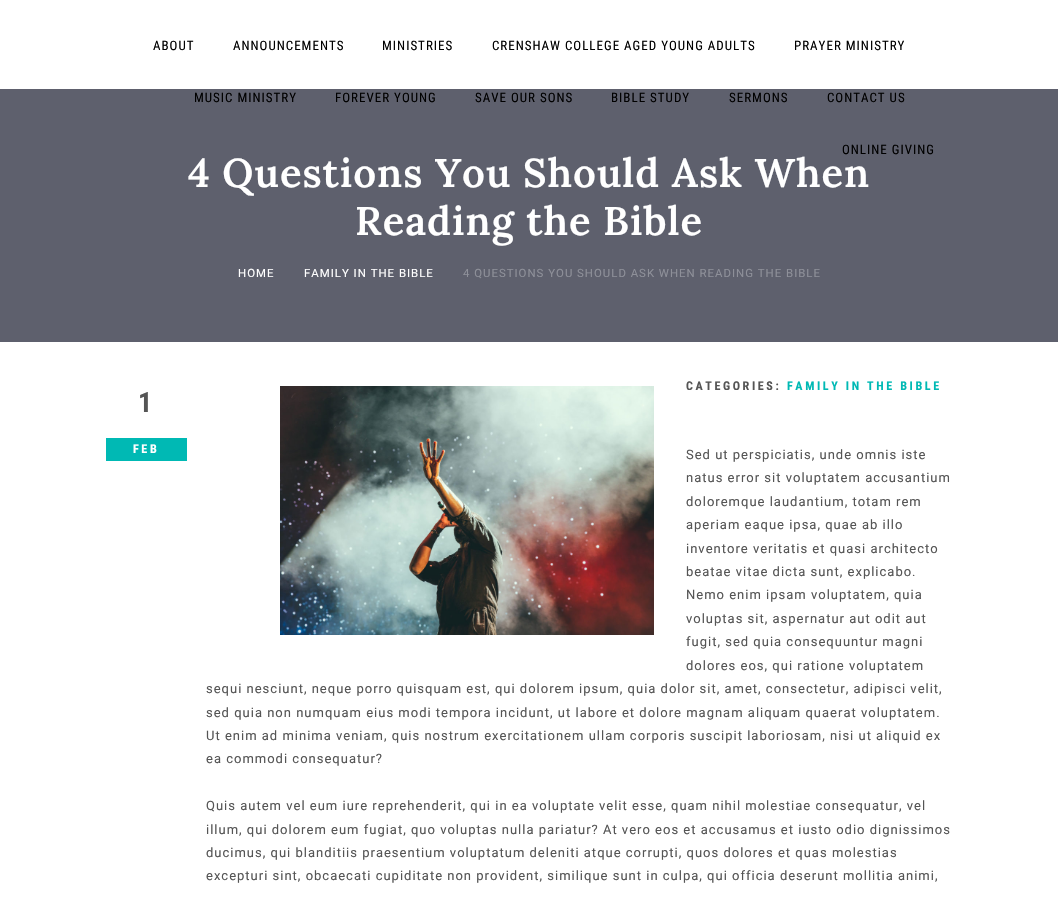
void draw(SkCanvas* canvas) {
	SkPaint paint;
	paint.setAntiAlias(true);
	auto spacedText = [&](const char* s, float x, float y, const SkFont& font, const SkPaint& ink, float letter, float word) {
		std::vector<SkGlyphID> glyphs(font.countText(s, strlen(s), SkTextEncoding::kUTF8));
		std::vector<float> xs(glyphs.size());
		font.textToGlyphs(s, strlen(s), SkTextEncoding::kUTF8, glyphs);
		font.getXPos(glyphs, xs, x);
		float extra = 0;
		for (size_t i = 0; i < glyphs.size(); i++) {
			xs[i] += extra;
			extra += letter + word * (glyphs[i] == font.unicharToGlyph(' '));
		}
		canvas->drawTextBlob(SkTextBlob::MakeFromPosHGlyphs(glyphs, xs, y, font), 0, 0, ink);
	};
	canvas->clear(0xffffffff);
	SkFont f1(fontMgr->matchFamilyStyle("Roboto Condensed", SkFontStyle::Normal()), 13);
	f1.setSubpixel(true);
	paint.setColor(0xff000000);
	spacedText("ABOUT", 153, 50, f1, paint, 1, 0);
	spacedText("ANNOUNCEMENTS", 233, 50, f1, paint, 1, 0);
	spacedText("MINISTRIES", 382, 50, f1, paint, 1, 0);
	spacedText("CRENSHAW COLLEGE AGED YOUNG ADULTS", 492, 50, f1, paint, 1, 0);
	spacedText("PRAYER MINISTRY", 794, 50, f1, paint, 1, 0);
	paint.setColor(0xff5e606d);
	canvas->drawRect(SkRect::MakeXYWH(0, 89, 1058, 253), paint);
	paint.setColor(0xff000000);
	spacedText("MUSIC MINISTRY", 194, 102, f1, paint, 1, 0);
	spacedText("FOREVER YOUNG", 335, 102, f1, paint, 1, 0);
	spacedText("SAVE OUR SONS", 475, 102, f1, paint, 1, 0);
	spacedText("BIBLE STUDY", 611, 102, f1, paint, 1, 0);
	spacedText("SERMONS", 729, 102, f1, paint, 1, 0);
	spacedText("CONTACT US", 827, 102, f1, paint, 1, 0);
	spacedText("ONLINE GIVING", 842, 154, f1, paint, 1, 0);
	SkFont f2(fontMgr->matchFamilyStyle("Lora", SkFontStyle(600, SkFontStyle::kNormal_Width, SkFontStyle::kUpright_Slant)), 40);
	f2.setSubpixel(true);
	paint.setColor(0xffffffff);
	spacedText("4 Questions You Should Ask When", 188, 187, f2, paint, 1, 0);
	spacedText("Reading the Bible", 355, 235, f2, paint, 1, 0);
	SkFont f3(fontMgr->matchFamilyStyle("Roboto", SkFontStyle::Normal()), 11.4);
	f3.setSubpixel(true);
	spacedText("HOME", 238, 277, f3, paint, 1, 0);
	spacedText("FAMILY IN THE BIBLE", 304, 277, f3, paint, 1, 0);
	paint.setColor(0xff8e9099);
	spacedText("4 QUESTIONS YOU SHOULD ASK WHEN READING THE BIBLE", 463, 277, f3, paint, 1, 0);
	SkFont f4(fontMgr->matchFamilyStyle("Roboto Condensed", SkFontStyle::Bold()), 12.1);
	f4.setSubpixel(true);
	paint.setColor(0xff555555);
	spacedText("CATEGORIES:", 686, 390, f4, paint, 2.6, 0);
	paint.setColor(0xff00b9b4);
	spacedText("FAMILY IN THE BIBLE", 787, 390, f4, paint, 2.6, 0);
	SkFont f5(fontMgr->matchFamilyStyle("Roboto Condensed", SkFontStyle::Bold()), 28);
	f5.setSubpixel(true);
	paint.setColor(0xff555555);
	spacedText("1", 138, 412, f5, paint, 2.6, 0);
	paint.setColor(0xff00b9b4);
	canvas->drawRect(SkRect::MakeXYWH(106, 438, 81, 23), paint);
	paint.setColor(0xffffffff);
	spacedText("FEB", 133, 453, f4, paint, 2.6, 0);
	canvas->drawImageRect(SkImages::DeferredFromEncodedData(SkData::MakeFromFileName("img1.png")), SkRect::MakeXYWH(280, 386, 374, 249), SkSamplingOptions());
	SkFont f6(fontMgr->matchFamilyStyle("Roboto", SkFontStyle::Normal()), 13);
	f6.setSubpixel(true);
	paint.setColor(0xff555555);
	spacedText("Sed ut perspiciatis, unde omnis iste", 686, 459, f6, paint, 1, 0);
	spacedText("natus error sit voluptatem accusantium", 686, 482, f6, paint, 1, 0);
	spacedText("doloremque laudantium, totam rem", 686, 506, f6, paint, 1, 0);
	spacedText("aperiam eaque ipsa, quae ab illo", 686, 529, f6, paint, 1, 0);
	spacedText("inventore veritatis et quasi architecto", 686, 553, f6, paint, 1, 0);
	spacedText("beatae vitae dicta sunt, explicabo.", 686, 576, f6, paint, 1, 0);
	spacedText("Nemo enim ipsam voluptatem, quia", 686, 599, f6, paint, 1, 0);
	spacedText("voluptas sit, aspernatur aut odit aut", 686, 623, f6, paint, 1, 0);
	spacedText("fugit, sed quia consequuntur magni", 686, 646, f6, paint, 1, 0);
	spacedText("dolores eos, qui ratione voluptatem", 686, 670, f6, paint, 1, 0);
	spacedText("sequi nesciunt, neque porro quisquam est, qui dolorem ipsum, quia dolor sit, amet, consectetur, adipisci velit,", 206, 693, f6, paint, 1, 0);
	spacedText("sed quia non numquam eius modi tempora incidunt, ut labore et dolore magnam aliquam quaerat voluptatem.", 206, 717, f6, paint, 1, 0);
	spacedText("Ut enim ad minima veniam, quis nostrum exercitationem ullam corporis suscipit laboriosam, nisi ut aliquid ex", 206, 740, f6, paint, 1, 0);
	spacedText("ea commodi consequatur?", 206, 763, f6, paint, 1, 0);
	spacedText("Quis autem vel eum iure reprehenderit, qui in ea voluptate velit esse, quam nihil molestiae consequatur, vel", 206, 810, f6, paint, 1, 0);
	spacedText("illum, qui dolorem eum fugiat, quo voluptas nulla pariatur? At vero eos et accusamus et iusto odio dignissimos", 206, 834, f6, paint, 1, 0);
	spacedText("ducimus, qui blanditiis praesentium voluptatum deleniti atque corrupti, quos dolores et quas molestias", 206, 857, f6, paint, 1, 0);
	spacedText("excepturi sint, obcaecati cupiditate non provident, similique sunt in culpa, qui officia deserunt mollitia animi,", 206, 880, f6, paint, 1, 0);
}
